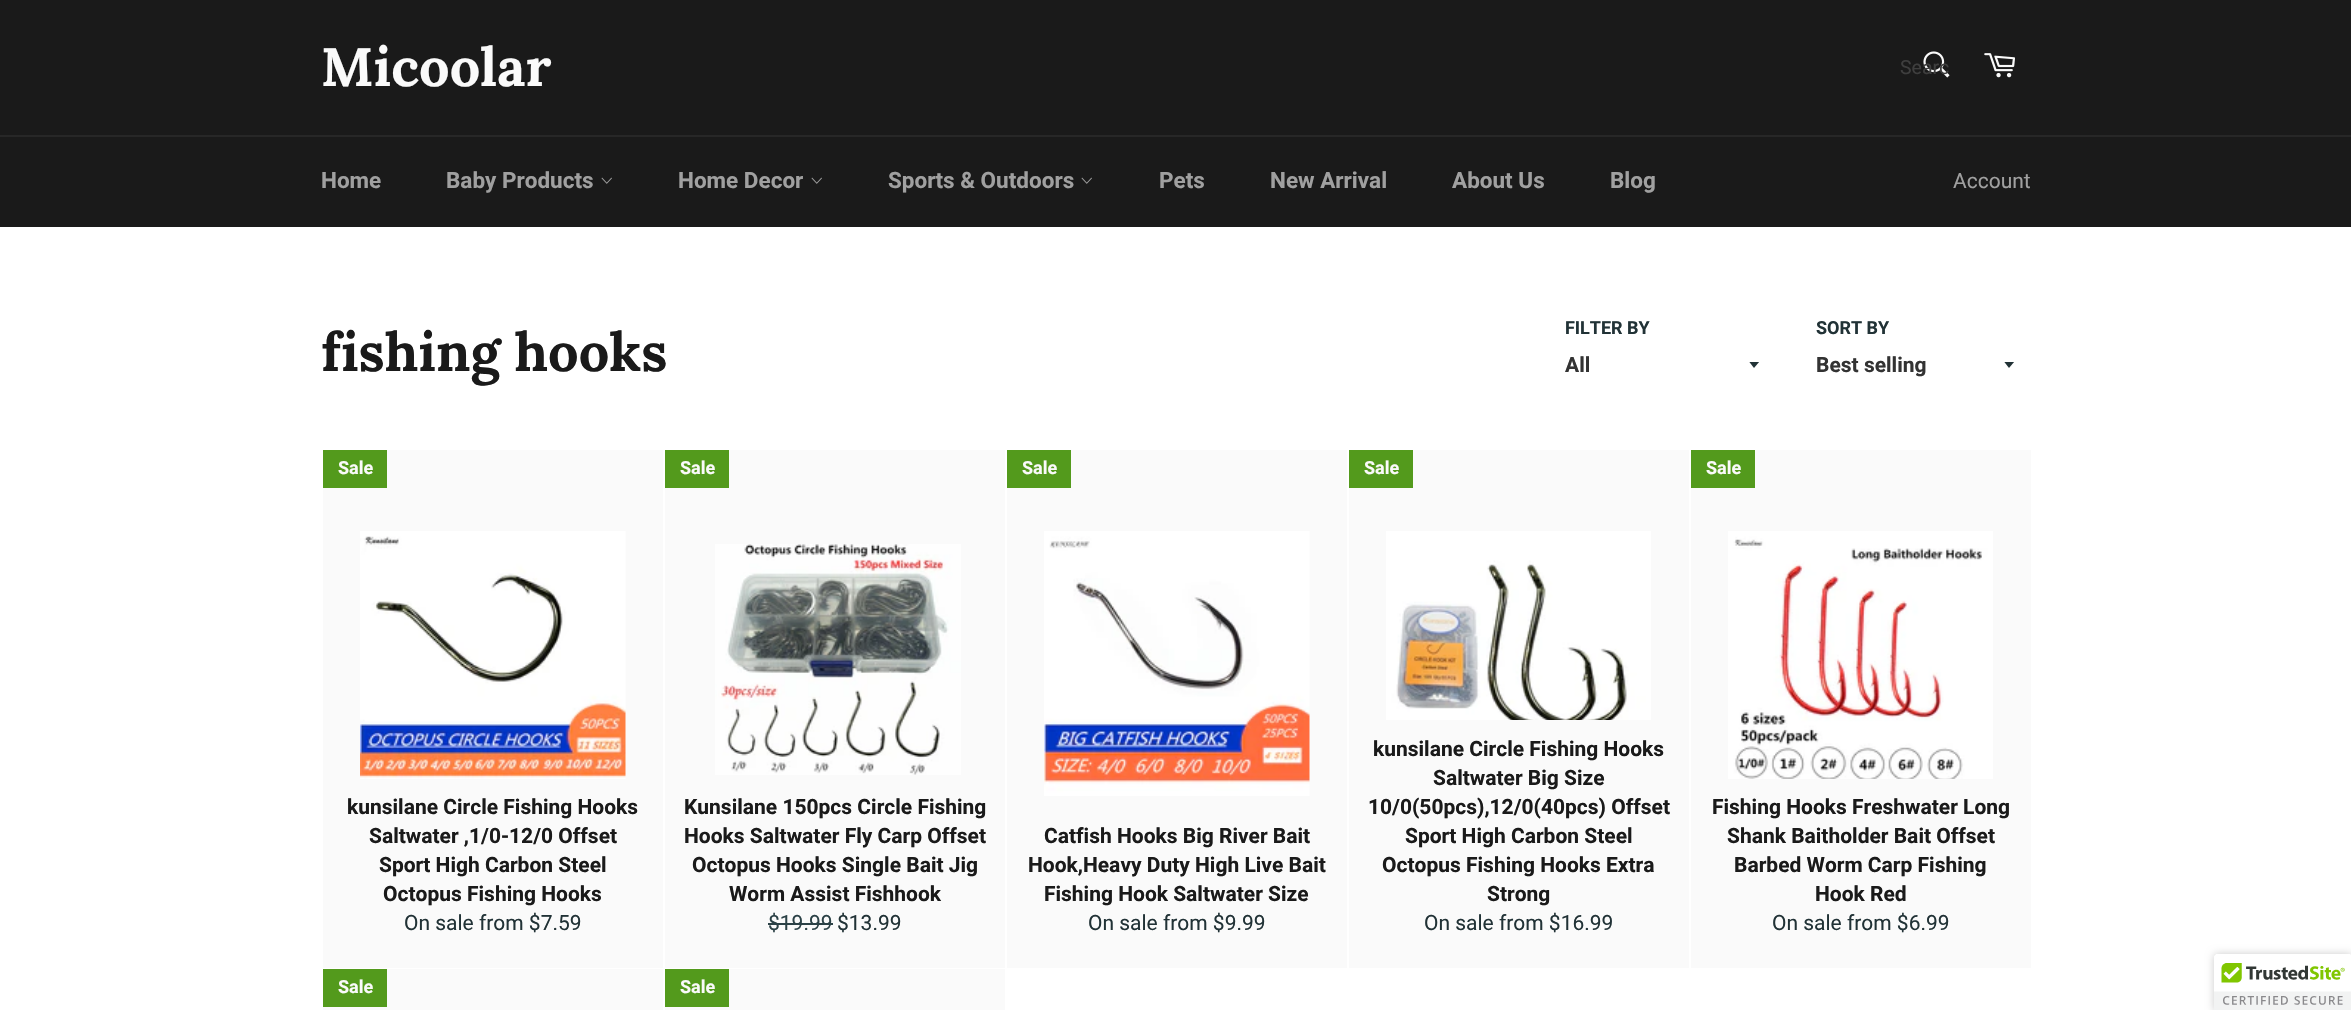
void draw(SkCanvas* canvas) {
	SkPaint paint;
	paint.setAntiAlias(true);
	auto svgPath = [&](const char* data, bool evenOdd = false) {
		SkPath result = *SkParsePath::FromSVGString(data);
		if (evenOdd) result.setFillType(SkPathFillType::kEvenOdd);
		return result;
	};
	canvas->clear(0xffffffff);
	paint.setColor(0xff1a1a1a);
	canvas->drawRect(SkRect::MakeXYWH(0, 0, 2351, 227), paint);
	SkFont f1(fontMgr->matchFamilyStyle("Lora", SkFontStyle::Bold()), 54);
	f1.setSubpixel(true);
	paint.setColor(0xfffafafa);
	canvas->drawString("Micoolar", 321, 86, f1, paint);
	canvas->drawImageRect(SkImages::DeferredFromEncodedData(SkData::MakeFromFileName("img1.png")), SkRect::MakeXYWH(1923, 51, 27, 27), SkSamplingOptions());
	SkFont f2(fontMgr->matchFamilyStyle("Roboto", SkFontStyle::Normal()), 19.5);
	f2.setSubpixel(true);
	paint.setColor(0xff3e3e3e);
	canvas->drawString("Searc", 1900, 74, f2, paint);
	canvas->drawImageRect(SkImages::DeferredFromEncodedData(SkData::MakeFromFileName("img2.png")), SkRect::MakeXYWH(1984, 53, 31, 25), SkSamplingOptions());
	paint.setColor(0xff272727);
	canvas->drawRect(SkRect::MakeXYWH(0, 135, 2351, 2), paint);
	SkFont f3(fontMgr->matchFamilyStyle("Roboto", SkFontStyle::Bold()), 22.5);
	f3.setSubpixel(true);
	paint.setColor(0xffa0a0a0);
	canvas->drawString("Home", 321, 188, f3, paint);
	canvas->drawString("Baby Products", 446, 188, f3, paint);
	canvas->drawImageRect(SkImages::DeferredFromEncodedData(SkData::MakeFromFileName("img3.png")), SkRect::MakeXYWH(601, 177, 11, 7), SkSamplingOptions());
	canvas->drawString("Home Decor", 678, 188, f3, paint);
	canvas->drawImageRect(SkImages::DeferredFromEncodedData(SkData::MakeFromFileName("img3.png")), SkRect::MakeXYWH(811, 177, 11, 7), SkSamplingOptions());
	canvas->drawString("Sports & Outdoors", 888, 188, f3, paint);
	canvas->drawImageRect(SkImages::DeferredFromEncodedData(SkData::MakeFromFileName("img3.png")), SkRect::MakeXYWH(1081, 177, 11, 7), SkSamplingOptions());
	canvas->drawString("Pets", 1159, 188, f3, paint);
	canvas->drawString("New Arrival", 1270, 188, f3, paint);
	canvas->drawString("About Us", 1452, 188, f3, paint);
	canvas->drawString("Blog", 1610, 188, f3, paint);
	SkFont f4(fontMgr->matchFamilyStyle("Roboto", SkFontStyle::Normal()), 21);
	f4.setSubpixel(true);
	canvas->drawString("Account", 1953, 188, f4, paint);
	paint.setColor(0xff1a1a1a);
	canvas->drawString("fishing hooks", 321, 371, f1, paint);
	SkFont f5(fontMgr->matchFamilyStyle("Roboto", SkFontStyle::Bold()), 18);
	f5.setSubpixel(true);
	paint.setColor(0xff213236);
	canvas->drawString("FILTER BY", 1565, 334, f5, paint);
	canvas->save();
	canvas->clipRect(SkRect::MakeXYWH(1749, 362, 12, 7));
	canvas->drawPath(svgPath("M1749 361.5L1754 368L1759.5 361.5Z"), paint);
	canvas->restore();
	SkFont f6(fontMgr->matchFamilyStyle("Roboto", SkFontStyle::Bold()), 21);
	f6.setSubpixel(true);
	paint.setColor(0xff333333);
	canvas->drawString("All", 1565, 372, f6, paint);
	paint.setColor(0xff213236);
	canvas->drawString("SORT BY", 1816, 334, f5, paint);
	canvas->save();
	canvas->clipRect(SkRect::MakeXYWH(2004, 362, 12, 7));
	canvas->drawPath(svgPath("M2004 361.5L2009 368L2014.5 361.5Z"), paint);
	canvas->restore();
	paint.setColor(0xff333333);
	canvas->drawString("Best selling", 1816, 372, f6, paint);
	paint.setColor(0xfffafafa);
	canvas->drawRect(SkRect::MakeXYWH(323, 450, 340, 518), paint);
	paint.setColor(0xff539a1c);
	canvas->drawRect(SkRect::MakeXYWH(323, 450, 64, 38), paint);
	paint.setColor(0xfffafafa);
	canvas->drawString("Sale", 338, 474, f5, paint);
	canvas->drawImageRect(SkImages::DeferredFromEncodedData(SkData::MakeFromFileName("img4.png")), SkRect::MakeXYWH(360, 531, 266, 248), SkSamplingOptions());
	paint.setColor(0xff1a1a1a);
	canvas->drawString("kunsilane Circle Fishing Hooks", 347, 814, f6, paint);
	canvas->drawString("Saltwater ,1/0-12/0 Offset", 369, 843, f6, paint);
	canvas->drawString("Sport High Carbon Steel", 379, 872, f6, paint);
	canvas->drawString("Octopus Fishing Hooks", 383, 901, f6, paint);
	paint.setColor(0xff213236);
	canvas->drawString("On sale from $7.59", 404, 930, f4, paint);
	paint.setColor(0xfffafafa);
	canvas->drawRect(SkRect::MakeXYWH(665, 450, 340, 518), paint);
	paint.setColor(0xff539a1c);
	canvas->drawRect(SkRect::MakeXYWH(665, 450, 64, 38), paint);
	paint.setColor(0xfffafafa);
	canvas->drawString("Sale", 680, 474, f5, paint);
	canvas->drawImageRect(SkImages::DeferredFromEncodedData(SkData::MakeFromFileName("img5.png")), SkRect::MakeXYWH(715, 544, 246, 231), SkSamplingOptions());
	paint.setColor(0xff1a1a1a);
	canvas->drawString("Kunsilane 150pcs Circle Fishing", 684, 814, f6, paint);
	canvas->drawString("Hooks Saltwater Fly Carp Offset", 684, 843, f6, paint);
	canvas->drawString("Octopus Hooks Single Bait Jig", 692, 872, f6, paint);
	canvas->drawString("Worm Assist Fishhook", 729, 901, f6, paint);
	paint.setColor(0xff2b4146);
	canvas->drawString("$19.99", 768, 930, f4, paint);
	canvas->drawRect(SkRect::MakeXYWH(768, 923, 65, 2), paint);
	paint.setColor(0xff213236);
	canvas->drawString("$13.99", 837, 930, f4, paint);
	paint.setColor(0xfffafafa);
	canvas->drawRect(SkRect::MakeXYWH(1007, 450, 340, 518), paint);
	paint.setColor(0xff539a1c);
	canvas->drawRect(SkRect::MakeXYWH(1007, 450, 64, 38), paint);
	paint.setColor(0xfffafafa);
	canvas->drawString("Sale", 1022, 474, f5, paint);
	canvas->drawImageRect(SkImages::DeferredFromEncodedData(SkData::MakeFromFileName("img6.png")), SkRect::MakeXYWH(1044, 531, 266, 265), SkSamplingOptions());
	paint.setColor(0xff1a1a1a);
	canvas->drawString("Catfish Hooks Big River Bait", 1044, 843, f6, paint);
	canvas->drawString("Hook,Heavy Duty High Live Bait", 1028, 872, f6, paint);
	canvas->drawString("Fishing Hook Saltwater Size", 1044, 901, f6, paint);
	paint.setColor(0xff213236);
	canvas->drawString("On sale from $9.99", 1088, 930, f4, paint);
	paint.setColor(0xfffafafa);
	canvas->drawRect(SkRect::MakeXYWH(1349, 450, 340, 518), paint);
	paint.setColor(0xff539a1c);
	canvas->drawRect(SkRect::MakeXYWH(1349, 450, 64, 38), paint);
	paint.setColor(0xfffafafa);
	canvas->drawString("Sale", 1364, 474, f5, paint);
	canvas->drawImageRect(SkImages::DeferredFromEncodedData(SkData::MakeFromFileName("img7.png")), SkRect::MakeXYWH(1386, 531, 265, 189), SkSamplingOptions());
	paint.setColor(0xff1a1a1a);
	canvas->drawString("kunsilane Circle Fishing Hooks", 1373, 756, f6, paint);
	canvas->drawString("Saltwater Big Size", 1433, 785, f6, paint);
	canvas->drawString("10/0(50pcs),12/0(40pcs) Offset", 1368, 814, f6, paint);
	canvas->drawString("Sport High Carbon Steel", 1405, 843, f6, paint);
	canvas->drawString("Octopus Fishing Hooks Extra", 1382, 872, f6, paint);
	canvas->drawString("Strong", 1487, 901, f6, paint);
	paint.setColor(0xff213236);
	canvas->drawString("On sale from $16.99", 1424, 930, f4, paint);
	paint.setColor(0xfffafafa);
	canvas->drawRect(SkRect::MakeXYWH(1691, 450, 340, 518), paint);
	paint.setColor(0xff539a1c);
	canvas->drawRect(SkRect::MakeXYWH(1691, 450, 64, 38), paint);
	paint.setColor(0xfffafafa);
	canvas->drawString("Sale", 1706, 474, f5, paint);
	canvas->drawImageRect(SkImages::DeferredFromEncodedData(SkData::MakeFromFileName("img8.png")), SkRect::MakeXYWH(1728, 531, 265, 248), SkSamplingOptions());
	paint.setColor(0xff1a1a1a);
	canvas->drawString("Fishing Hooks Freshwater Long", 1712, 814, f6, paint);
	canvas->drawString("Shank Baitholder Bait Offset", 1727, 843, f6, paint);
	canvas->drawString("Barbed Worm Carp Fishing", 1734, 872, f6, paint);
	canvas->drawString("Hook Red", 1815, 901, f6, paint);
	paint.setColor(0xff213236);
	canvas->drawString("On sale from $6.99", 1772, 930, f4, paint);
	paint.setColor(0xfffafafa);
	canvas->drawRect(SkRect::MakeXYWH(323, 969, 340, 41), paint);
	paint.setColor(0xff539a1c);
	canvas->drawRect(SkRect::MakeXYWH(323, 969, 64, 38), paint);
	paint.setColor(0xfffafafa);
	canvas->drawString("Sale", 338, 993, f5, paint);
	canvas->drawRect(SkRect::MakeXYWH(665, 969, 340, 41), paint);
	paint.setColor(0xff539a1c);
	canvas->drawRect(SkRect::MakeXYWH(665, 969, 64, 38), paint);
	paint.setColor(0xfffafafa);
	canvas->drawString("Sale", 680, 993, f5, paint);
	paint.setColor(0x33000000);
	paint.setMaskFilter(SkMaskFilter::MakeBlur(kNormal_SkBlurStyle, 4));
	canvas->drawRoundRect(SkRect::MakeXYWH(2214, 954, 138, 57), 3, 3, paint);
	paint.setMaskFilter(nullptr);
	paint.setColor(0xffffffff);
	canvas->drawPath(svgPath("M2217 954H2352V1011H2214V957C2214 955.5 2215.5 954 2217 954Z"), paint);
	canvas->drawImageRect(SkImages::DeferredFromEncodedData(SkData::MakeFromFileName("img9.png")), SkRect::MakeXYWH(2214, 954, 137, 56), SkSamplingOptions());
}
